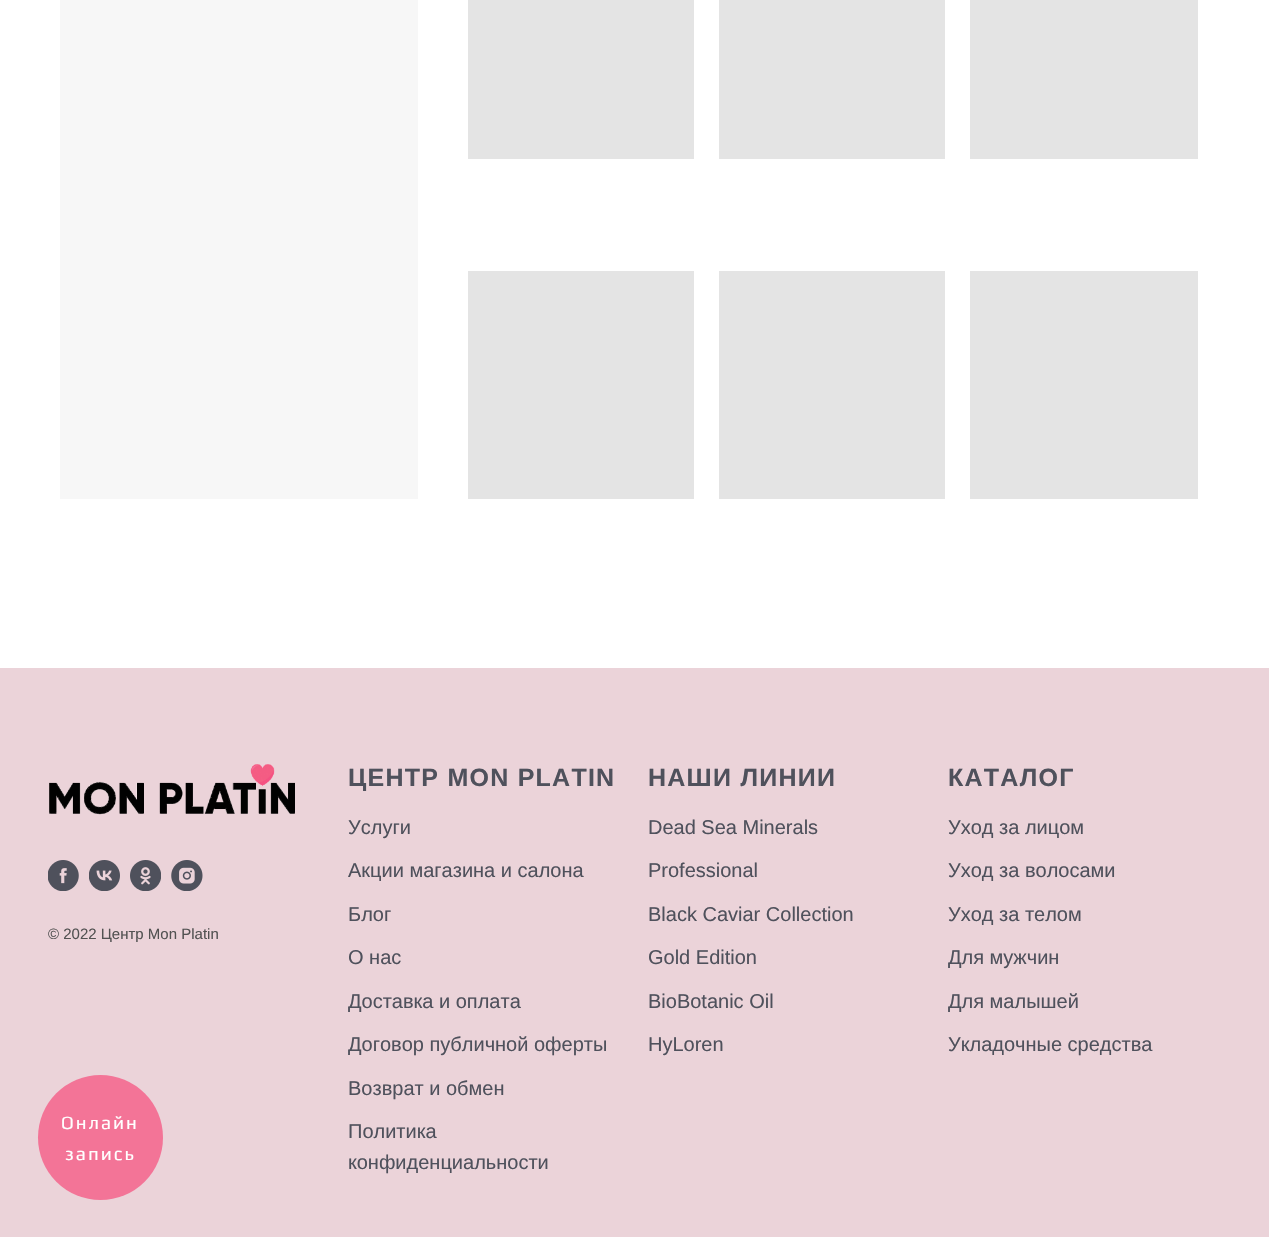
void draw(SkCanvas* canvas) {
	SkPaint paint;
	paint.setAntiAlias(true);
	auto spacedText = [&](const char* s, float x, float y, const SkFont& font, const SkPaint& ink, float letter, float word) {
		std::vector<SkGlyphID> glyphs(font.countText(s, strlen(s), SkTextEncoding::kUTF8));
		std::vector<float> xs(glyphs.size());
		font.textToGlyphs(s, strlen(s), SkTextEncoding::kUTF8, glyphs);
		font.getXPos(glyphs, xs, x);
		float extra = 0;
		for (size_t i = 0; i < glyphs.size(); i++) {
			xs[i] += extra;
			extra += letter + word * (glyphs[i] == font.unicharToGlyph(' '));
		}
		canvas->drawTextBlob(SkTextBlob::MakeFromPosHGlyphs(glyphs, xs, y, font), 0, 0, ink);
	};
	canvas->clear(0xffffffff);
	paint.setColor(0xfff7f7f7);
	canvas->drawRect(SkRect::MakeXYWH(60, 0, 358, 499), paint);
	paint.setColor(0xffe4e4e4);
	canvas->drawRect(SkRect::MakeXYWH(468, 0, 226, 159), paint);
	canvas->drawRect(SkRect::MakeXYWH(719, 0, 226, 159), paint);
	canvas->drawRect(SkRect::MakeXYWH(970, 0, 228, 159), paint);
	canvas->drawRect(SkRect::MakeXYWH(468, 271, 226, 228), paint);
	canvas->drawRect(SkRect::MakeXYWH(719, 271, 226, 228), paint);
	canvas->drawRect(SkRect::MakeXYWH(970, 271, 228, 228), paint);
	paint.setColor(0xffebd3d9);
	canvas->drawRect(SkRect::MakeXYWH(0, 668, 1269, 569), paint);
	canvas->drawImageRect(SkImages::DeferredFromEncodedData(SkData::MakeFromFileName("img1.png")), SkRect::MakeXYWH(49, 764, 246, 51), SkSamplingOptions());
	canvas->drawImageRect(SkImages::DeferredFromEncodedData(SkData::MakeFromFileName("img2.png")), SkRect::MakeXYWH(48, 860, 31, 31), SkSamplingOptions());
	canvas->drawImageRect(SkImages::DeferredFromEncodedData(SkData::MakeFromFileName("img3.png")), SkRect::MakeXYWH(89, 860, 31, 31), SkSamplingOptions());
	canvas->drawImageRect(SkImages::DeferredFromEncodedData(SkData::MakeFromFileName("img4.png")), SkRect::MakeXYWH(130, 860, 31, 31), SkSamplingOptions());
	canvas->drawImageRect(SkImages::DeferredFromEncodedData(SkData::MakeFromFileName("img5.png")), SkRect::MakeXYWH(171, 860, 32, 31), SkSamplingOptions());
	SkFont f1(fontMgr->matchFamilyStyle("Liberation Sans", SkFontStyle::Normal()), 15);
	f1.setSubpixel(true);
	paint.setColor(0xff525252);
	canvas->drawString("© 2022 Центр Mon Platin", 48, 939, f1, paint);
	SkFont f2(fontMgr->matchFamilyStyle("Liberation Sans", SkFontStyle::Bold()), 25);
	f2.setSubpixel(true);
	paint.setColor(0xff4f515c);
	spacedText("ЦЕНТР MON PLATIN", 348, 786, f2, paint, 1.25, 0);
	SkFont f3(fontMgr->matchFamilyStyle("Liberation Sans", SkFontStyle::Normal()), 20);
	f3.setSubpixel(true);
	canvas->drawString("Услуги", 348, 834, f3, paint);
	canvas->drawString("Акции магазина и салона", 348, 877, f3, paint);
	canvas->drawString("Блог", 348, 921, f3, paint);
	canvas->drawString("О нас", 348, 964, f3, paint);
	canvas->drawString("Доставка и оплата", 348, 1008, f3, paint);
	canvas->drawString("Договор публичной оферты", 348, 1051, f3, paint);
	canvas->drawString("Возврат и обмен", 348, 1095, f3, paint);
	canvas->drawString("Политика", 348, 1138, f3, paint);
	canvas->drawString("конфиденциальности", 348, 1169, f3, paint);
	spacedText("НАШИ ЛИНИИ", 648, 786, f2, paint, 1.25, 0);
	canvas->drawString("Dead Sea Minerals", 648, 834, f3, paint);
	canvas->drawString("Professional", 648, 877, f3, paint);
	canvas->drawString("Black Caviar Collection", 648, 921, f3, paint);
	canvas->drawString("Gold Edition", 648, 964, f3, paint);
	canvas->drawString("BioBotanic Oil", 648, 1008, f3, paint);
	canvas->drawString("HyLoren", 648, 1051, f3, paint);
	spacedText("КАТАЛОГ", 948, 786, f2, paint, 1.25, 0);
	canvas->drawString("Уход за лицом", 948, 834, f3, paint);
	canvas->drawString("Уход за волосами", 948, 877, f3, paint);
	canvas->drawString("Уход за телом", 948, 921, f3, paint);
	canvas->drawString("Для мужчин", 948, 964, f3, paint);
	canvas->drawString("Для малышей", 948, 1008, f3, paint);
	canvas->drawString("Укладочные средства", 948, 1051, f3, paint);
	paint.setColor(0xfff37497);
	canvas->drawCircle(100.5, 1137.5, 62.5, paint);
	SkFont f4(fontMgr->matchFamilyStyle("Play", SkFontStyle::Normal()), 18.75);
	f4.setSubpixel(true);
	paint.setColor(0xffffffff);
	spacedText("Онлайн", 61, 1129, f4, paint, 2, 0);
	spacedText("запись", 65, 1160, f4, paint, 2, 0);
}
